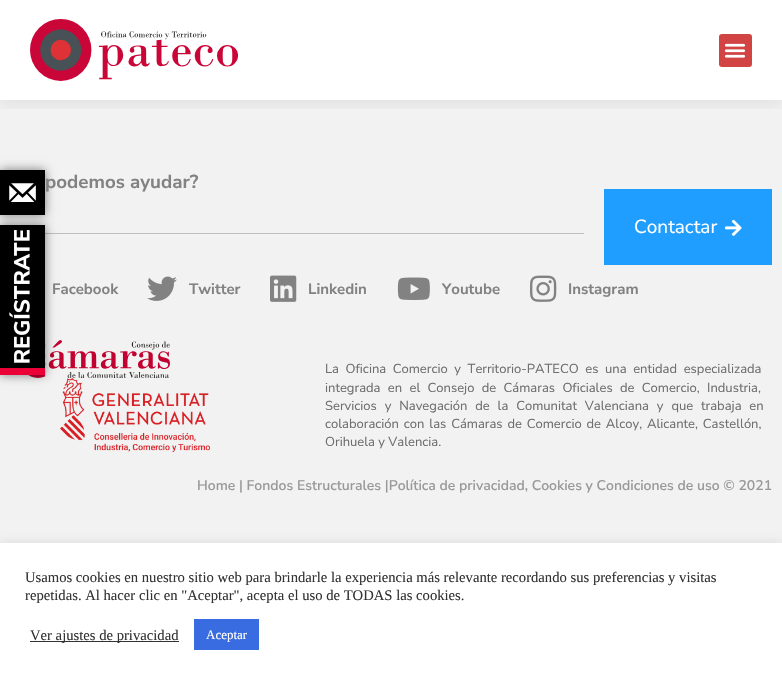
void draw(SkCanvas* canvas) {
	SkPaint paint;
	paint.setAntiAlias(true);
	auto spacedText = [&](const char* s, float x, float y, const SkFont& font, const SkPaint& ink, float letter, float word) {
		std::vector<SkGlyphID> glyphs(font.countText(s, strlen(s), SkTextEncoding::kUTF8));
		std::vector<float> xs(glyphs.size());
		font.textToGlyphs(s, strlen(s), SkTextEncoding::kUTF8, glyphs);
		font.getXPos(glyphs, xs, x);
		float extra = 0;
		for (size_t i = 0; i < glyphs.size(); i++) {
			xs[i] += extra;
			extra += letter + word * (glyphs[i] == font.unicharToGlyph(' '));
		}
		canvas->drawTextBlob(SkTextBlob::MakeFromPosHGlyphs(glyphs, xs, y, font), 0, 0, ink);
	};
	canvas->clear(0xffffffff);
	paint.setColor(0xfff2f2f2);
	canvas->drawRect(SkRect::MakeXYWH(0, 100, 782, 443), paint);
	canvas->save();
	canvas->clipRect(SkRect::MakeXYWH(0, 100, 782, 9));
	paint.setColor(0x14000000);
	paint.setMaskFilter(SkMaskFilter::MakeBlur(kNormal_SkBlurStyle, 8));
	canvas->drawRect(SkRect::MakeXYWH(0, 4, 782, 100), paint);
	paint.setMaskFilter(nullptr);
	canvas->restore();
	canvas->drawImageRect(SkImages::DeferredFromEncodedData(SkData::MakeFromFileName("img1.png")), SkRect::MakeXYWH(30, 19, 208, 62), SkSamplingOptions());
	paint.setColor(0xffd24343);
	canvas->drawRoundRect(SkRect::MakeXYWH(719, 34, 33, 33), 3, 3, paint);
	canvas->drawImageRect(SkImages::DeferredFromEncodedData(SkData::MakeFromFileName("img2.png")), SkRect::MakeXYWH(724, 43, 22, 15), SkSamplingOptions());
	paint.setColor(0xffc1bebe);
	canvas->drawRect(SkRect::MakeXYWH(45, 233, 539, 1), paint);
	canvas->drawImageRect(SkImages::DeferredFromEncodedData(SkData::MakeFromFileName("img10.png")), SkRect::MakeXYWH(28, 340, 142, 38), SkSamplingOptions());
	canvas->drawImageRect(SkImages::DeferredFromEncodedData(SkData::MakeFromFileName("img11.png")), SkRect::MakeXYWH(60, 378, 150, 74), SkSamplingOptions());
	paint.setColor(0x80000000);
	paint.setMaskFilter(SkMaskFilter::MakeBlur(kNormal_SkBlurStyle, 5));
	canvas->drawRect(SkRect::MakeXYWH(0, 225, 45, 150), paint);
	paint.setMaskFilter(nullptr);
	canvas->drawImageRect(SkImages::DeferredFromEncodedData(SkData::MakeFromFileName("img4.png")), SkRect::MakeXYWH(0, 225, 45, 150), SkSamplingOptions());
	paint.setMaskFilter(SkMaskFilter::MakeBlur(kNormal_SkBlurStyle, 5));
	canvas->drawRect(SkRect::MakeXYWH(0, 170, 45, 45), paint);
	paint.setMaskFilter(nullptr);
	canvas->drawImageRect(SkImages::DeferredFromEncodedData(SkData::MakeFromFileName("img3.png")), SkRect::MakeXYWH(0, 170, 45, 45), SkSamplingOptions());
	SkFont f1(fontMgr->matchFamilyStyle("Nunito Sans", SkFontStyle::Bold()), 18.75);
	f1.setSubpixel(true);
	paint.setColor(0xff828282);
	canvas->drawString("podemos ayudar?", 45, 188, f1, paint);
	SkFont f2(fontMgr->matchFamilyStyle("Nunito Sans", SkFontStyle::Bold()), 15);
	f2.setSubpixel(true);
	canvas->drawString("Facebook", 52, 294, f2, paint);
	canvas->drawImageRect(SkImages::DeferredFromEncodedData(SkData::MakeFromFileName("img5.png")), SkRect::MakeXYWH(147, 276, 30, 25), SkSamplingOptions());
	canvas->drawString("Twitter", 189, 294, f2, paint);
	canvas->drawImageRect(SkImages::DeferredFromEncodedData(SkData::MakeFromFileName("img6.png")), SkRect::MakeXYWH(270, 275, 27, 27), SkSamplingOptions());
	canvas->drawString("Linkedin", 308, 294, f2, paint);
	canvas->drawImageRect(SkImages::DeferredFromEncodedData(SkData::MakeFromFileName("img7.png")), SkRect::MakeXYWH(397, 277, 33, 23), SkSamplingOptions());
	canvas->drawString("Youtube", 442, 294, f2, paint);
	canvas->drawImageRect(SkImages::DeferredFromEncodedData(SkData::MakeFromFileName("img8.png")), SkRect::MakeXYWH(530, 275, 27, 27), SkSamplingOptions());
	canvas->drawString("Instagram", 568, 294, f2, paint);
	paint.setColor(0xff1f9eff);
	canvas->drawRect(SkRect::MakeXYWH(604, 189, 168, 76), paint);
	SkFont f3(fontMgr->matchFamilyStyle("Nunito Sans", SkFontStyle::Normal()), 19);
	f3.setSubpixel(true);
	paint.setColor(0xffffffff);
	canvas->drawString("Contactar", 634, 233, f3, paint);
	canvas->drawImageRect(SkImages::DeferredFromEncodedData(SkData::MakeFromFileName("img9.png")), SkRect::MakeXYWH(725, 219, 17, 17), SkSamplingOptions());
	SkFont f4(fontMgr->matchFamilyStyle("Nunito Sans", SkFontStyle::Normal()), 13);
	f4.setSubpixel(true);
	paint.setColor(0xff6e6e6e);
	spacedText("La Oficina Comercio y Territorio-PATECO es una entidad especializada", 325, 373, f4, paint, 0, 3.25);
	spacedText("integrada en el Consejo de Cámaras Oficiales de Comercio, Industria,", 325, 392, f4, paint, 0, 4);
	spacedText("Servicios y Navegación de la Comunitat Valenciana y que trabaja en", 325, 410, f4, paint, 0, 4.5);
	spacedText("colaboración con las Cámaras de Comercio de Alcoy, Alicante, Castellón,", 325, 428, f4, paint, 0, 1.5);
	canvas->drawString("Orihuela y Valencia.", 325, 446, f4, paint);
	SkFont f5(fontMgr->matchFamilyStyle("Nunito Sans", SkFontStyle(600, SkFontStyle::kNormal_Width, SkFontStyle::kUpright_Slant)), 14);
	f5.setSubpixel(true);
	paint.setColor(0xff999999);
	canvas->drawString("Home | Fondos Estructurales |Política de privacidad, Cookies y Condiciones de uso © 2021", 197, 490, f5, paint);
	paint.setColor(0x4dacabab);
	paint.setMaskFilter(SkMaskFilter::MakeBlur(kNormal_SkBlurStyle, 5));
	canvas->drawRect(SkRect::MakeXYWH(0, 542, 782, 137), paint);
	paint.setMaskFilter(nullptr);
	paint.setColor(0xffffffff);
	canvas->drawRect(SkRect::MakeXYWH(0, 543, 782, 137), paint);
	SkFont f6(fontMgr->matchFamilyStyle("Liberation Serif", SkFontStyle::Normal()), 14.65);
	f6.setSubpixel(true);
	paint.setColor(0xff333333);
	canvas->drawString("Usamos cookies en nuestro sitio web para brindarle la experiencia más relevante recordando sus preferencias y visitas", 25, 582, f6, paint);
	canvas->drawString("repetidas. Al hacer clic en \"Aceptar\", acepta el uso de TODAS las cookies.", 25, 600, f6, paint);
	canvas->drawRect(SkRect::MakeXYWH(30, 641, 149, 1), paint);
	canvas->drawString("Ver ajustes de privacidad", 30, 640, f6, paint);
	paint.setColor(0xff386ce0);
	canvas->drawRect(SkRect::MakeXYWH(194, 619, 65, 31), paint);
	SkFont f7(fontMgr->matchFamilyStyle("Liberation Serif", SkFontStyle::Normal()), 13);
	f7.setSubpixel(true);
	paint.setColor(0xffffffff);
	canvas->drawString("Aceptar", 206, 639, f7, paint);
}
